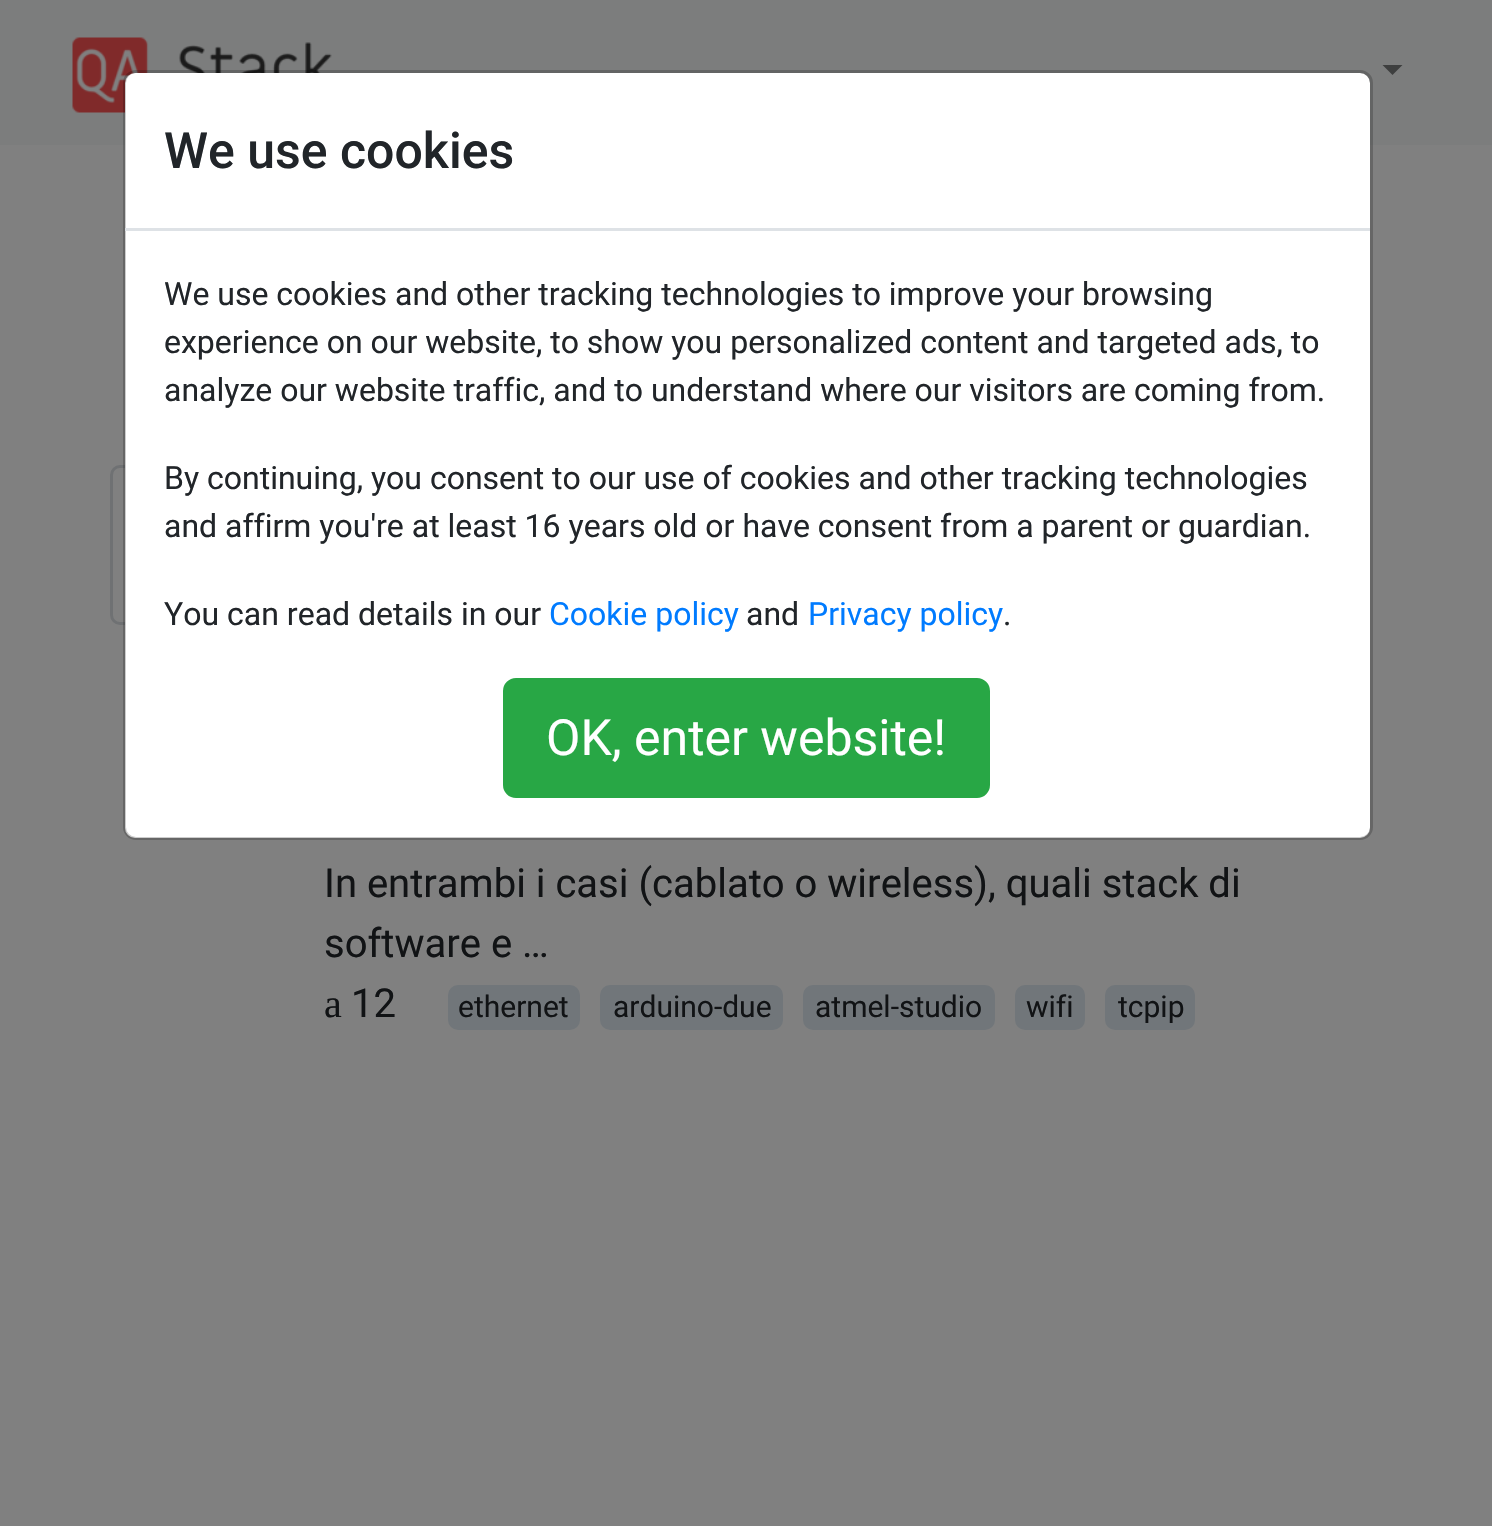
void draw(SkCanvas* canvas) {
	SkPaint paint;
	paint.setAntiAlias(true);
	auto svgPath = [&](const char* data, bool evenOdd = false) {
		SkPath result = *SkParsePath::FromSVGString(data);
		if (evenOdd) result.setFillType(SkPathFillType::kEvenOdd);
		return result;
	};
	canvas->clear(0xff808080);
	paint.setColor(0xff7c7d7d);
	canvas->drawRect(SkRect::MakeXYWH(0, 0, 1492, 145), paint);
	canvas->drawImageRect(SkImages::DeferredFromEncodedData(SkData::MakeFromFileName("img1.png")), SkRect::MakeXYWH(72, 37, 260, 76), SkSamplingOptions());
	paint.setColor(0xff3e3f3f);
	canvas->drawPath(svgPath("M1382.5 65H1402.5L1392.5 75Z"), paint);
	paint.setStroke(true);
	paint.setStrokeWidth(3);
	paint.setColor(0xff6f7173);
	canvas->drawRoundRect(SkRect::MakeXYWH(111.5, 466.5, 172, 157), 8.5, 8.5, paint);
	paint.setStroke(false);
	paint.setColor(0xffffffff);
	canvas->drawRoundRect(SkRect::MakeXYWH(125, 73, 1245, 765), 10, 10, paint);
	paint.setStroke(true);
	paint.setColor(0x33000000);
	canvas->drawRoundRect(SkRect::MakeXYWH(124.5, 71.5, 1247, 767), 11.5, 11.5, paint);
	paint.setStroke(false);
	paint.setColor(0xffdee2e6);
	canvas->drawRect(SkRect::MakeXYWH(125, 228, 1245, 3), paint);
	SkFont f1(fontMgr->matchFamilyStyle("Roboto", SkFontStyle(500, SkFontStyle::kNormal_Width, SkFontStyle::kUpright_Slant)), 50);
	f1.setSubpixel(true);
	paint.setColor(0xff212529);
	canvas->drawString("We use cookies", 164, 168, f1, paint);
	SkFont f2(fontMgr->matchFamilyStyle("Roboto", SkFontStyle::Normal()), 32);
	f2.setSubpixel(true);
	canvas->drawString("We use cookies and other tracking technologies to improve your browsing", 164, 305, f2, paint);
	canvas->drawString("experience on our website, to show you personalized content and targeted ads, to", 164, 353, f2, paint);
	canvas->drawString("analyze our website traffic, and to understand where our visitors are coming from.", 164, 401, f2, paint);
	canvas->drawString("By continuing, you consent to our use of cookies and other tracking technologies", 164, 489, f2, paint);
	canvas->drawString("and affirm you're at least 16 years old or have consent from a parent or guardian.", 164, 537, f2, paint);
	canvas->drawString("You can read details in our", 164, 625, f2, paint);
	paint.setColor(0xff007bff);
	canvas->drawString("Cookie policy", 549, 625, f2, paint);
	paint.setColor(0xff212529);
	canvas->drawString("and", 746, 625, f2, paint);
	paint.setColor(0xff007bff);
	canvas->drawString("Privacy policy", 808, 625, f2, paint);
	paint.setColor(0xff212529);
	canvas->drawString(".", 1003, 625, f2, paint);
	paint.setColor(0xff28a745);
	canvas->drawRoundRect(SkRect::MakeXYWH(504.5, 679.5, 484, 117), 11.5, 11.5, paint);
	paint.setStroke(true);
	canvas->drawRoundRect(SkRect::MakeXYWH(504.5, 679.5, 484, 117), 11.5, 11.5, paint);
	SkFont f3(fontMgr->matchFamilyStyle("Roboto", SkFontStyle::Normal()), 50);
	f3.setSubpixel(true);
	paint.setStroke(false);
	paint.setColor(0xffffffff);
	canvas->drawString("OK, enter website!", 546, 755, f3, paint);
	SkFont f4(fontMgr->matchFamilyStyle("Roboto", SkFontStyle::Normal()), 40);
	f4.setSubpixel(true);
	paint.setColor(0xff111315);
	canvas->drawString("In entrambi i casi (cablato o wireless), quali stack di", 324, 897, f4, paint);
	canvas->drawString("software e …", 324, 957, f4, paint);
	SkFont f5(fontMgr->matchFamilyStyle("Liberation Serif", SkFontStyle::Normal()), 40);
	f5.setSubpixel(true);
	canvas->drawString("a", 324, 1017, f5, paint);
	canvas->drawString("12", 351, 1017, f4, paint);
	paint.setColor(0xff71767a);
	canvas->drawRoundRect(SkRect::MakeXYWH(448, 985, 132, 45), 10, 10, paint);
	SkFont f6(fontMgr->matchFamilyStyle("Roboto", SkFontStyle::Normal()), 30);
	f6.setSubpixel(true);
	paint.setColor(0xff111315);
	canvas->drawString("ethernet", 458, 1017, f6, paint);
	paint.setColor(0xff71767a);
	canvas->drawRoundRect(SkRect::MakeXYWH(600, 985, 183, 45), 10, 10, paint);
	paint.setColor(0xff111315);
	canvas->drawString("arduino-due", 613, 1017, f6, paint);
	paint.setColor(0xff71767a);
	canvas->drawRoundRect(SkRect::MakeXYWH(803, 985, 192, 45), 10, 10, paint);
	paint.setColor(0xff111315);
	canvas->drawString("atmel-studio", 815, 1017, f6, paint);
	paint.setColor(0xff71767a);
	canvas->drawRoundRect(SkRect::MakeXYWH(1015, 985, 70, 45), 10, 10, paint);
	paint.setColor(0xff111315);
	canvas->drawString("wifi", 1026, 1017, f6, paint);
	paint.setColor(0xff71767a);
	canvas->drawRoundRect(SkRect::MakeXYWH(1105, 985, 90, 45), 10, 10, paint);
	paint.setColor(0xff111315);
	canvas->drawString("tcpip", 1118, 1017, f6, paint);
}
